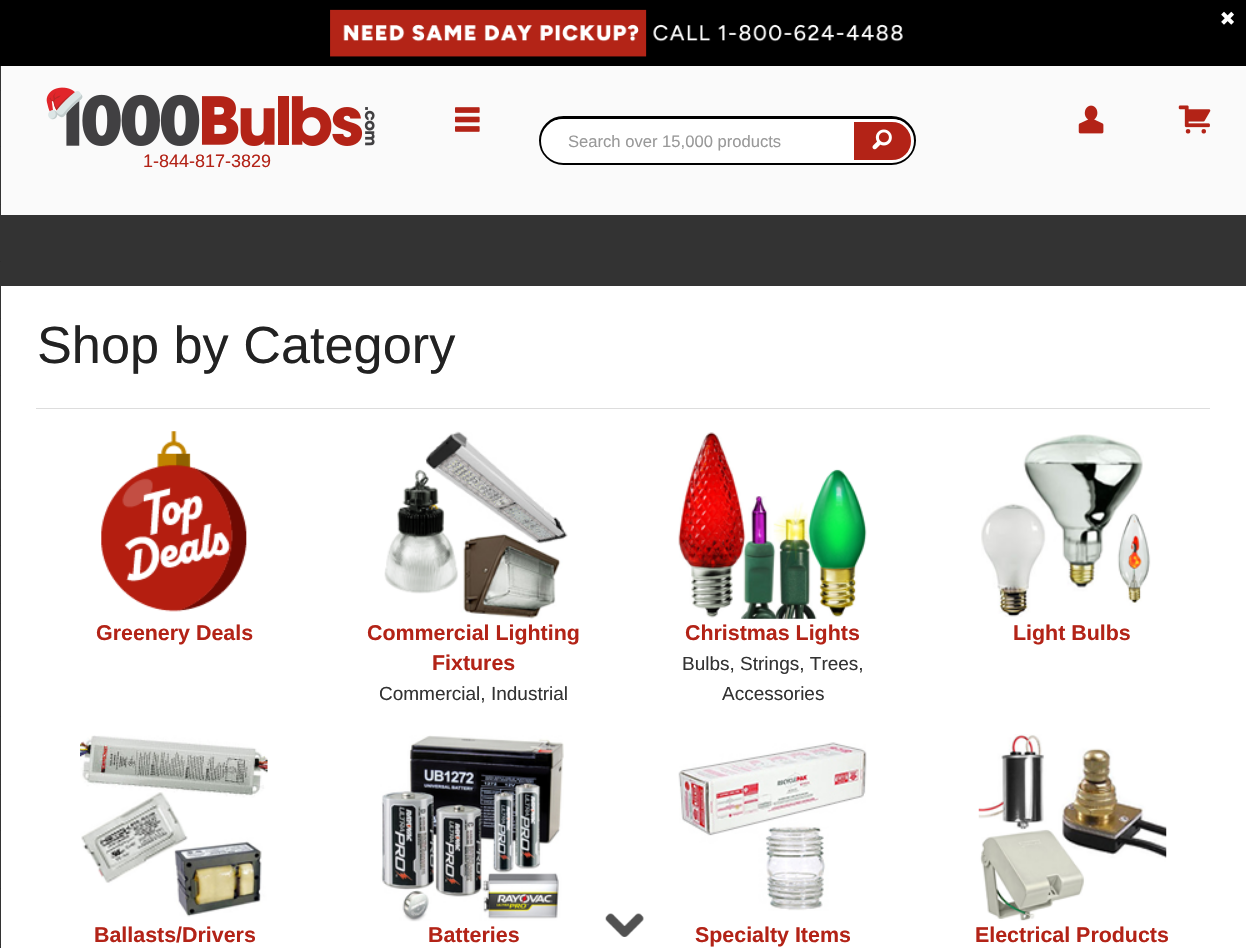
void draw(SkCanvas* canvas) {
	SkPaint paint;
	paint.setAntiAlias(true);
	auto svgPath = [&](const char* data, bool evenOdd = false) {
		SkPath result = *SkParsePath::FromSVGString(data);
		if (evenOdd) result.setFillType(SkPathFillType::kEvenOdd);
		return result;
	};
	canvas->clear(0xffffffff);
	paint.setColor(0xff000000);
	canvas->drawRect(SkRect::MakeXYWH(0, 0, 1246, 66), paint);
	canvas->drawImageRect(SkImages::DeferredFromEncodedData(SkData::MakeFromFileName("img1.png")), SkRect::MakeXYWH(330, 9, 573, 48), SkSamplingOptions());
	canvas->drawImageRect(SkImages::DeferredFromEncodedData(SkData::MakeFromFileName("img2.png")), SkRect::MakeXYWH(1221, 11, 13, 14), SkSamplingOptions());
	paint.setColor(0xff333333);
	canvas->drawRect(SkRect::MakeXYWH(0, 66, 1, 882), paint);
	paint.setColor(0xff2e2e2e);
	canvas->drawRect(SkRect::MakeXYWH(0, 90, 1, 1), paint);
	canvas->drawRect(SkRect::MakeXYWH(0, 146, 1, 1), paint);
	canvas->drawRect(SkRect::MakeXYWH(0, 204, 1, 1), paint);
	canvas->drawRect(SkRect::MakeXYWH(0, 261, 1, 1), paint);
	canvas->drawRect(SkRect::MakeXYWH(0, 318, 1, 1), paint);
	canvas->drawRect(SkRect::MakeXYWH(0, 375, 1, 1), paint);
	canvas->drawRect(SkRect::MakeXYWH(0, 431, 1, 1), paint);
	canvas->drawRect(SkRect::MakeXYWH(0, 489, 1, 1), paint);
	canvas->drawRect(SkRect::MakeXYWH(0, 545, 1, 1), paint);
	canvas->drawRect(SkRect::MakeXYWH(0, 603, 1, 1), paint);
	canvas->drawRect(SkRect::MakeXYWH(0, 660, 1, 1), paint);
	canvas->drawRect(SkRect::MakeXYWH(0, 716, 1, 1), paint);
	canvas->drawRect(SkRect::MakeXYWH(0, 774, 1, 1), paint);
	canvas->drawRect(SkRect::MakeXYWH(0, 830, 1, 1), paint);
	canvas->drawRect(SkRect::MakeXYWH(0, 888, 1, 1), paint);
	canvas->drawRect(SkRect::MakeXYWH(0, 944, 1, 1), paint);
	paint.setColor(0xfffafafa);
	canvas->drawRect(SkRect::MakeXYWH(1, 66, 1245, 149), paint);
	canvas->drawImageRect(SkImages::DeferredFromEncodedData(SkData::MakeFromFileName("img3.png")), SkRect::MakeXYWH(455, 107, 25, 25), SkSamplingOptions());
	canvas->drawImageRect(SkImages::DeferredFromEncodedData(SkData::MakeFromFileName("img4.png")), SkRect::MakeXYWH(1078, 105, 26, 29), SkSamplingOptions());
	canvas->drawImageRect(SkImages::DeferredFromEncodedData(SkData::MakeFromFileName("img5.png")), SkRect::MakeXYWH(1178, 105, 33, 29), SkSamplingOptions());
	paint.setStroke(true);
	paint.setStrokeWidth(3);
	paint.setColor(0xff000000);
	canvas->drawRoundRect(SkRect::MakeXYWH(540.5, 117.5, 374, 46), 23, 23, paint);
	paint.setStroke(false);
	paint.setColor(0xffffffff);
	canvas->drawPath(svgPath("M563 120.5H849.5V161.5H563C551.5 161.5 542.5 152.5 542.5 141C542.5 129.5 551.5 120.5 563 120.5Z"), paint);
	paint.setStroke(true);
	canvas->drawPath(svgPath("M563 120.5H849.5V161.5H563C551.5 161.5 542.5 152.5 542.5 141C542.5 129.5 551.5 120.5 563 120.5Z"), paint);
	SkFont f1(fontMgr->matchFamilyStyle("Liberation Sans", SkFontStyle::Normal()), 16.6);
	f1.setSubpixel(true);
	paint.setStroke(false);
	paint.setColor(0xff999999);
	canvas->drawString("Search over 15,000 products", 568, 147, f1, paint);
	paint.setColor(0xffb32317);
	canvas->drawPath(svgPath("M852.5 120.5H892C903.5 120.5 912.5 129.5 912.5 141C912.5 152.5 903.5 161.5 892 161.5H852.5Z"), paint);
	paint.setStroke(true);
	paint.setColor(0xffffffff);
	canvas->drawPath(svgPath("M852.5 120.5H892C903.5 120.5 912.5 129.5 912.5 141C912.5 152.5 903.5 161.5 892 161.5H852.5Z"), paint);
	canvas->drawImageRect(SkImages::DeferredFromEncodedData(SkData::MakeFromFileName("img6.png")), SkRect::MakeXYWH(872, 129, 20, 21), SkSamplingOptions());
	canvas->drawImageRect(SkImages::DeferredFromEncodedData(SkData::MakeFromFileName("img7.png")), SkRect::MakeXYWH(46, 87, 329, 59), SkSamplingOptions());
	SkFont f2(fontMgr->matchFamilyStyle("Liberation Sans", SkFontStyle::Normal()), 18);
	f2.setSubpixel(true);
	paint.setStroke(false);
	paint.setColor(0xffb32317);
	canvas->drawString("1-844-817-3829", 143, 167, f2, paint);
	paint.setColor(0xff333333);
	canvas->drawRect(SkRect::MakeXYWH(1, 215, 1245, 71), paint);
	SkFont f3(fontMgr->matchFamilyStyle("Liberation Sans", SkFontStyle::Normal()), 52.25);
	f3.setSubpixel(true);
	paint.setColor(0xff222222);
	canvas->drawString("Shop by Category", 37, 363, f3, paint);
	paint.setColor(0xffdddddd);
	canvas->drawRect(SkRect::MakeXYWH(36, 408, 1174, 1), paint);
	canvas->drawImageRect(SkImages::DeferredFromEncodedData(SkData::MakeFromFileName("img8.png")), SkRect::MakeXYWH(101, 431, 146, 181), SkSamplingOptions());
	SkFont f4(fontMgr->matchFamilyStyle("Liberation Sans", SkFontStyle::Bold()), 21.4);
	f4.setSubpixel(true);
	paint.setColor(0xffb32317);
	canvas->drawString("Greenery Deals", 96, 640, f4, paint);
	canvas->drawImageRect(SkImages::DeferredFromEncodedData(SkData::MakeFromFileName("img9.png")), SkRect::MakeXYWH(384, 431, 184, 188), SkSamplingOptions());
	canvas->drawString("Commercial Lighting", 367, 640, f4, paint);
	canvas->drawString("Fixtures", 432, 670, f4, paint);
	SkFont f5(fontMgr->matchFamilyStyle("Liberation Sans", SkFontStyle::Normal()), 19);
	f5.setSubpixel(true);
	paint.setColor(0xff333333);
	canvas->drawString("Commercial, Industrial", 379, 700, f5, paint);
	canvas->drawImageRect(SkImages::DeferredFromEncodedData(SkData::MakeFromFileName("img10.png")), SkRect::MakeXYWH(678, 432, 189, 187), SkSamplingOptions());
	paint.setColor(0xffb32317);
	canvas->drawString("Christmas Lights", 685, 640, f4, paint);
	paint.setColor(0xff333333);
	canvas->drawString("Bulbs, Strings, Trees,", 682, 670, f5, paint);
	canvas->drawString("Accessories", 722, 700, f5, paint);
	canvas->drawImageRect(SkImages::DeferredFromEncodedData(SkData::MakeFromFileName("img11.png")), SkRect::MakeXYWH(981, 434, 170, 183), SkSamplingOptions());
	paint.setColor(0xffb32317);
	canvas->drawString("Light Bulbs", 1013, 640, f4, paint);
	canvas->drawImageRect(SkImages::DeferredFromEncodedData(SkData::MakeFromFileName("img12.png")), SkRect::MakeXYWH(80, 735, 188, 182), SkSamplingOptions());
	canvas->drawString("Ballasts/Drivers", 94, 942, f4, paint);
	canvas->drawImageRect(SkImages::DeferredFromEncodedData(SkData::MakeFromFileName("img13.png")), SkRect::MakeXYWH(380, 735, 184, 187), SkSamplingOptions());
	canvas->drawString("Batteries", 428, 942, f4, paint);
	canvas->drawImageRect(SkImages::DeferredFromEncodedData(SkData::MakeFromFileName("img14.png")), SkRect::MakeXYWH(678, 742, 189, 169), SkSamplingOptions());
	canvas->drawString("Specialty Items", 695, 942, f4, paint);
	canvas->drawImageRect(SkImages::DeferredFromEncodedData(SkData::MakeFromFileName("img15.png")), SkRect::MakeXYWH(978, 734, 189, 187), SkSamplingOptions());
	canvas->drawString("Electrical Products", 975, 942, f4, paint);
	canvas->drawImageRect(SkImages::DeferredFromEncodedData(SkData::MakeFromFileName("img16.png")), SkRect::MakeXYWH(605, 913, 39, 24), SkSamplingOptions());
}
